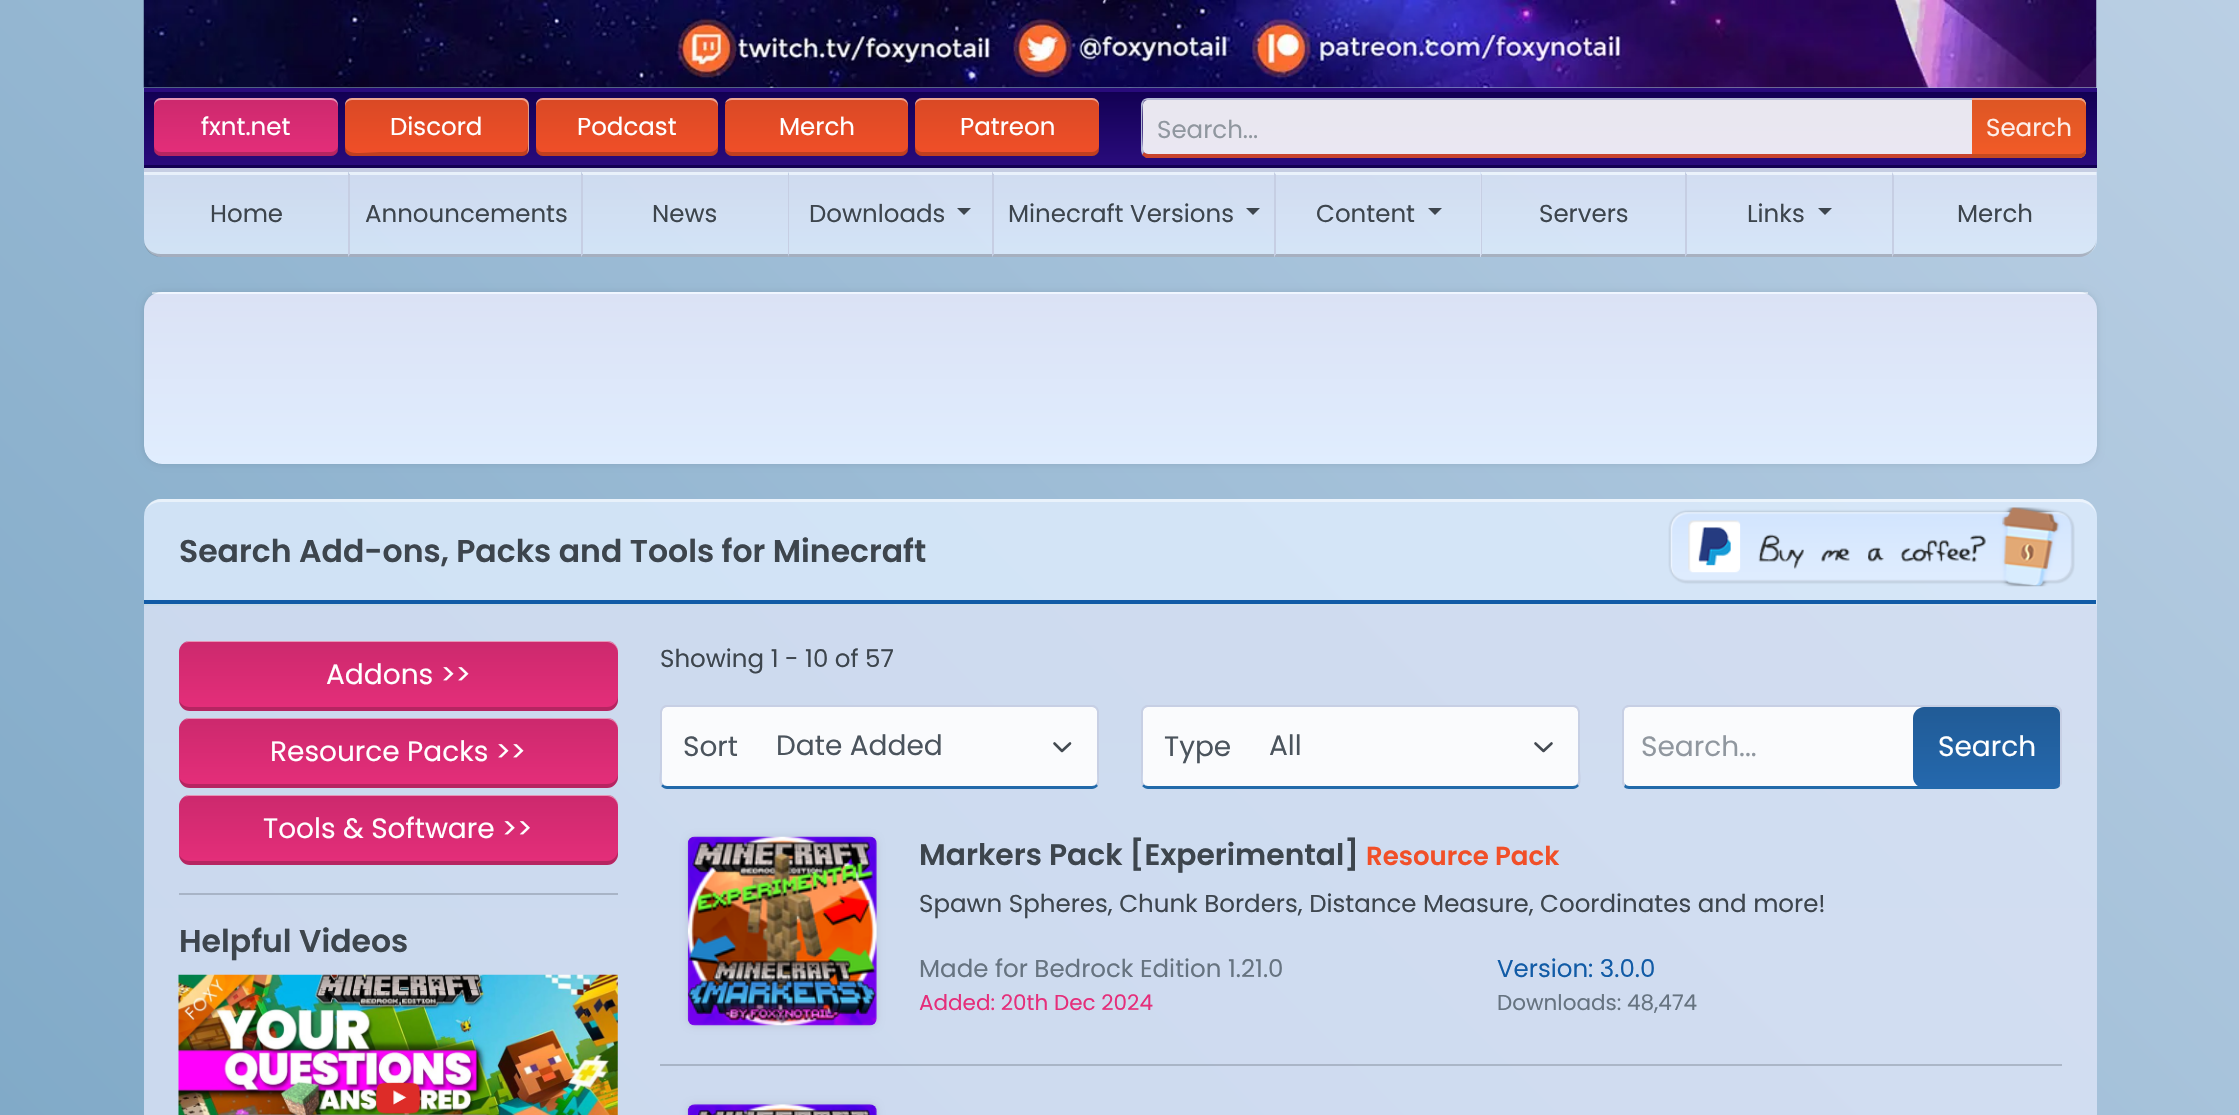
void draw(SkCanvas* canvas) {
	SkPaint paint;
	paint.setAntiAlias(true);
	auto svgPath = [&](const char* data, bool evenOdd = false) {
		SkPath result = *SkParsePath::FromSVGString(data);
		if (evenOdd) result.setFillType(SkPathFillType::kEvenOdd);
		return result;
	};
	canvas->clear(0xffffffff);
	{
		const SkColor colors[] = {0xff81aac8, 0xffbacfe4};
		const float stops[] = {0, 1};
		const SkPoint ends[] = {{281, 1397}, {1959, -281}};
		paint.setShader(SkGradientShader::MakeLinear(ends, colors, stops, 2, SkTileMode::kClamp));
		paint.setAlpha(255);
	}
	canvas->drawRect(SkRect::MakeXYWH(0, 0, 2239, 1115), paint);
	canvas->drawImageRect(SkImages::DeferredFromEncodedData(SkData::MakeFromFileName("img1.png")), SkRect::MakeXYWH(143, 0, 1954, 88), SkSamplingOptions());
	{
		const SkColor colors[] = {0xff120052, 0xff290b7c};
		const float stops[] = {0, 1};
		const SkPoint ends[] = {{1120, 91}, {1120, 165}};
		paint.setShader(SkGradientShader::MakeLinear(ends, colors, stops, 2, SkTileMode::kClamp));
		paint.setAlpha(255);
	}
	canvas->drawRect(SkRect::MakeXYWH(144, 92, 1953, 73), paint);
	paint.setShader(nullptr);
	paint.setColor(0xff290b7c);
	canvas->drawRect(SkRect::MakeXYWH(144, 88, 1953, 4), paint);
	paint.setColor(0xff120052);
	canvas->drawRect(SkRect::MakeXYWH(144, 165, 1953, 3), paint);
	{
		const SkColor colors[] = {0xffcc296d, 0xffe52e7a};
		const float stops[] = {0, 1};
		const SkPoint ends[] = {{246, 98}, {246, 156}};
		paint.setShader(SkGradientShader::MakeLinear(ends, colors, stops, 2, SkTileMode::kClamp));
		paint.setAlpha(255);
	}
	canvas->drawRoundRect(SkRect::MakeXYWH(154, 98, 184, 58), 7, 7, paint);
	paint.setShader(nullptr);
	paint.setColor(0x33000000);
	canvas->drawPath(svgPath("M154 145V149C154 153 157 156 161 156H331C335 156 338 153 338 149V145C338 149 335 152 331 152H161C157 152 154 149 154 145Z"), paint);
	paint.setColor(0x80ffffff);
	canvas->drawPath(svgPath("M161 100H331C335 100 338 103 338 107V105C338 101 335 98 331 98H161C157 98 154 101 154 105V107C154 103 157 100 161 100Z"), paint);
	SkFont f1(fontMgr->matchFamilyStyle("Poppins", SkFontStyle::Normal()), 24.5);
	f1.setSubpixel(true);
	paint.setColor(0xffffffff);
	canvas->drawString("fxnt.net", 201, 135, f1, paint);
	{
		const SkColor colors[] = {0xffd94925, 0xfff14f28};
		const float stops[] = {0, 1};
		const SkPoint ends[] = {{437, 98}, {437, 156}};
		paint.setShader(SkGradientShader::MakeLinear(ends, colors, stops, 2, SkTileMode::kClamp));
		paint.setAlpha(255);
	}
	canvas->drawRoundRect(SkRect::MakeXYWH(345, 98, 184, 58), 7, 7, paint);
	paint.setShader(nullptr);
	paint.setColor(0x33000000);
	canvas->drawPath(svgPath("M345 145V149C345 153 348 156 352 156H522C526 156 529 153 529 149V105C529 104 529 102 528 101V138C528 142 529 152 522 152H380C367 152 345 157 345 145Z"), paint);
	paint.setColor(0x80ffffff);
	canvas->drawPath(svgPath("M352 100H522C525 100 528 103 528 107V150L527 154C528 152 529 151 529 149V105C529 101 526 98 522 98H352C348 98 345 101 345 105V107C345 103 348 100 352 100Z"), paint);
	paint.setColor(0xffffffff);
	canvas->drawString("Discord", 390, 135, f1, paint);
	{
		const SkColor colors[] = {0xffd94925, 0xfff14f28};
		const float stops[] = {0, 1};
		const SkPoint ends[] = {{627, 98}, {627, 156}};
		paint.setShader(SkGradientShader::MakeLinear(ends, colors, stops, 2, SkTileMode::kClamp));
		paint.setAlpha(255);
	}
	canvas->drawRoundRect(SkRect::MakeXYWH(536, 98, 182, 58), 7, 7, paint);
	paint.setShader(nullptr);
	paint.setColor(0x33000000);
	canvas->drawPath(svgPath("M536 145V149C536 153 539 156 543 156H711C715 156 718 153 718 149V145C718 149 714 152 710 152H542C539 152 536 149 536 145Z"), paint);
	paint.setColor(0x80ffffff);
	canvas->drawPath(svgPath("M542 100H710C714 100 718 103 718 107V105C718 101 715 98 711 98H543C539 98 536 101 536 105V107C536 103 539 100 542 100Z"), paint);
	paint.setColor(0xffffffff);
	canvas->drawString("Podcast", 577, 135, f1, paint);
	{
		const SkColor colors[] = {0xffd94925, 0xfff14f28};
		const float stops[] = {0, 1};
		const SkPoint ends[] = {{816, 98}, {816, 156}};
		paint.setShader(SkGradientShader::MakeLinear(ends, colors, stops, 2, SkTileMode::kClamp));
		paint.setAlpha(255);
	}
	canvas->drawRoundRect(SkRect::MakeXYWH(725, 98, 183, 58), 7, 7, paint);
	paint.setShader(nullptr);
	paint.setColor(0x33000000);
	canvas->drawPath(svgPath("M725 148V149C725 153 728 156 732 156H901C905 156 908 153 908 149V145C908 149 905 152 901 152H732C729 152 726 151 725 148Z"), paint);
	paint.setColor(0x80ffffff);
	canvas->drawPath(svgPath("M732 100H901C905 100 908 103 908 107V105C908 101 905 98 901 98H732C729 98 726 100 725 103C727 101 729 100 732 100Z"), paint);
	paint.setColor(0xffffffff);
	canvas->drawString("Merch", 779, 135, f1, paint);
	{
		const SkColor colors[] = {0xffd94925, 0xfff14f28};
		const float stops[] = {0, 1};
		const SkPoint ends[] = {{1007, 98}, {1007, 156}};
		paint.setShader(SkGradientShader::MakeLinear(ends, colors, stops, 2, SkTileMode::kClamp));
		paint.setAlpha(255);
	}
	canvas->drawRoundRect(SkRect::MakeXYWH(915, 98, 184, 58), 7, 7, paint);
	paint.setShader(nullptr);
	paint.setColor(0x33000000);
	canvas->drawPath(svgPath("M915 145V149C915 153 918 156 922 156H1092C1096 156 1099 153 1099 149V145C1099 149 1096 152 1092 152H922C918 152 915 149 915 145Z"), paint);
	paint.setColor(0x80ffffff);
	canvas->drawPath(svgPath("M922 100H1092C1096 100 1099 103 1099 107V105C1099 101 1096 98 1092 98H922C918 98 915 101 915 105V107C915 103 918 100 922 100Z"), paint);
	paint.setColor(0xffffffff);
	canvas->drawString("Patreon", 960, 135, f1, paint);
	paint.setColor(0xe6ffffff);
	canvas->drawPath(svgPath("M1148 100H2079C2082 100 2084 102 2084 105V150C2084 152 2082 154 2079 154H1148C1145 154 1143 152 1143 150V105C1143 102 1145 100 1148 100Z"), paint);
	paint.setColor(0xffb4bad5);
	canvas->drawPath(svgPath("M1148 98C1146 98 1144 99 1143 100L1144 101C1145 100 1146 100 1148 100H2079C2080 100 2082 100 2083 101L2084 100C2083 99 2081 98 2079 98Z"), paint);
	paint.setColor(0xe6c6cee3);
	canvas->drawPath(svgPath("M2086 150V105C2086 103 2085 101 2084 100L2083 101L2084 104C2085 108 2085 150 2083 152L2085 155C2085 153 2086 152 2086 150Z"), paint);
	paint.setColor(0xe6d94925);
	canvas->drawPath(svgPath("M1146 158L1142 155L1144 152C1145 153 1146 154 1148 154H2079C2081 154 2082 153 2083 152L2085 155L2081 158Z"), paint);
	paint.setColor(0xe6c6cee3);
	canvas->drawPath(svgPath("M1141 105V150C1141 152 1142 153 1142 155L1144 152C1142 150 1142 108 1143 104L1144 101L1143 100C1142 101 1141 103 1141 105Z"), paint);
	paint.setColor(0xff90979f);
	canvas->drawString("Search...", 1157, 138, f1, paint);
	paint.setColor(0xe6ffc107);
	canvas->drawPath(svgPath("M1972 98H2079C2083 98 2086 101 2086 105V151C2086 155 2083 158 2079 158H1972Z"), paint);
	{
		const SkColor colors[] = {0xe6d94925, 0xe6f14f28};
		const float stops[] = {0, 1};
		const SkPoint ends[] = {{2029, 98}, {2029, 158}};
		paint.setShader(SkGradientShader::MakeLinear(ends, colors, stops, 2, SkTileMode::kClamp));
		paint.setAlpha(255);
	}
	canvas->drawPath(svgPath("M1972 98H2079C2083 98 2086 101 2086 105V151C2086 155 2083 158 2079 158H1972Z"), paint);
	paint.setShader(nullptr);
	paint.setColor(0x2e000000);
	canvas->drawPath(svgPath("M1972 154V158H2079C2083 158 2086 155 2086 151V147C2086 151 2083 154 2079 154Z"), paint);
	paint.setColor(0x73ffffff);
	canvas->drawPath(svgPath("M1972 100H2079C2083 100 2086 103 2086 107V105C2086 101 2083 98 2079 98H1972Z"), paint);
	paint.setColor(0xfffdeee9);
	canvas->drawString("Search", 1986, 136, f1, paint);
	paint.setColor(0xffc6cee3);
	canvas->drawRect(SkRect::MakeXYWH(144, 168, 1953, 4), paint);
	canvas->save();
	canvas->clipPath(svgPath("M144 172H348V257H162C152 257 144 249 144 239Z"), true);
	{
		const SkColor colors[] = {0xccdbe2f5, 0xcce0edfe};
		const float stops[] = {0, 1};
		const SkPoint ends[] = {{246, 175}, {246, 254}};
		paint.setShader(SkGradientShader::MakeLinear(ends, colors, stops, 2, SkTileMode::kClamp));
		paint.setAlpha(255);
	}
	canvas->drawRect(SkRect::MakeXYWH(144, 175, 204, 79), paint);
	{
		const SkColor colors[] = {0xccdbe2f5, 0xcce0edfe};
		const float stops[] = {0, 1};
		const SkPoint ends[] = {{246, 254}, {246, 333}};
		paint.setShader(SkGradientShader::MakeLinear(ends, colors, stops, 2, SkTileMode::kClamp));
		paint.setAlpha(255);
	}
	canvas->drawRect(SkRect::MakeXYWH(144, 254, 204, 3), paint);
	canvas->restore();
	paint.setShader(nullptr);
	paint.setColor(0xffe8f0fa);
	canvas->drawRect(SkRect::MakeXYWH(144, 172, 204, 3), paint);
	paint.setColor(0x33000000);
	canvas->drawPath(svgPath("M348 257V254H161C151 254 144 247 144 240C144 249 151 257 161 257Z"), paint);
	paint.setColor(0xff3d454d);
	canvas->drawString("Home", 210, 222, f1, paint);
	{
		const SkColor colors[] = {0xccdbe2f5, 0xcce0edfe};
		const float stops[] = {0, 1};
		const SkPoint ends[] = {{466, 175}, {466, 254}};
		paint.setShader(SkGradientShader::MakeLinear(ends, colors, stops, 2, SkTileMode::kClamp));
		paint.setAlpha(255);
	}
	canvas->drawRect(SkRect::MakeXYWH(350, 175, 231, 79), paint);
	paint.setShader(nullptr);
	paint.setColor(0xffe8f1fa);
	canvas->drawPath(svgPath("M348 172H581V175H350Z"), paint);
	paint.setColor(0xffa4aebf);
	canvas->drawPath(svgPath("M581 257H348L350 254H581Z"), paint);
	paint.setColor(0xffc6cee3);
	canvas->drawPath(svgPath("M348 257V172L350 175V254Z"), paint);
	paint.setColor(0xff3d454d);
	canvas->drawString("Announcements", 365, 222, f1, paint);
	{
		const SkColor colors[] = {0xccdbe2f5, 0xcce0edfe};
		const float stops[] = {0, 1};
		const SkPoint ends[] = {{685, 175}, {685, 254}};
		paint.setShader(SkGradientShader::MakeLinear(ends, colors, stops, 2, SkTileMode::kClamp));
		paint.setAlpha(255);
	}
	canvas->drawRect(SkRect::MakeXYWH(583, 175, 205, 79), paint);
	paint.setShader(nullptr);
	paint.setColor(0xffe9f1fa);
	canvas->drawPath(svgPath("M581 172H788V175H583Z"), paint);
	paint.setColor(0xffa5afbf);
	canvas->drawPath(svgPath("M788 257H581L583 254H788Z"), paint);
	paint.setColor(0xffc6cee3);
	canvas->drawPath(svgPath("M581 257V172L583 175V254Z"), paint);
	paint.setColor(0xff3d454d);
	canvas->drawString("News", 652, 222, f1, paint);
	{
		const SkColor colors[] = {0xccdbe2f5, 0xcce0edfe};
		const float stops[] = {0, 1};
		const SkPoint ends[] = {{891, 175}, {891, 254}};
		paint.setShader(SkGradientShader::MakeLinear(ends, colors, stops, 2, SkTileMode::kClamp));
		paint.setAlpha(255);
	}
	canvas->drawRect(SkRect::MakeXYWH(789, 175, 203, 79), paint);
	paint.setShader(nullptr);
	paint.setColor(0xffe9f1fb);
	canvas->drawPath(svgPath("M788 172H992V175H789Z"), paint);
	paint.setColor(0xffa5afbf);
	canvas->drawPath(svgPath("M992 257H788L789 254H992Z"), paint);
	paint.setColor(0xffc6cee3);
	canvas->drawPath(svgPath("M788 257V172L789 175V254Z"), paint);
	paint.setColor(0xff3d454d);
	canvas->drawString("Downloads", 809, 222, f1, paint);
	canvas->drawPath(svgPath("M957 208H971L964 215Z"), paint);
	{
		const SkColor colors[] = {0xccdbe2f5, 0xcce0edfe};
		const float stops[] = {0, 1};
		const SkPoint ends[] = {{1134, 175}, {1134, 254}};
		paint.setShader(SkGradientShader::MakeLinear(ends, colors, stops, 2, SkTileMode::kClamp));
		paint.setAlpha(255);
	}
	canvas->drawRect(SkRect::MakeXYWH(994, 175, 280, 79), paint);
	paint.setShader(nullptr);
	paint.setColor(0xffe9f1fb);
	canvas->drawPath(svgPath("M992 172H1274V175H994Z"), paint);
	paint.setColor(0xffa6b0bf);
	canvas->drawPath(svgPath("M1274 257H992L994 254H1274Z"), paint);
	paint.setColor(0xffc6cee3);
	canvas->drawPath(svgPath("M992 257V172L994 175V254Z"), paint);
	paint.setColor(0xff3d454d);
	canvas->drawString("Minecraft Versions", 1008, 222, f1, paint);
	canvas->drawPath(svgPath("M1246 208H1260L1253 215Z"), paint);
	{
		const SkColor colors[] = {0xccdbe2f5, 0xcce0edfe};
		const float stops[] = {0, 1};
		const SkPoint ends[] = {{1584, 96}, {1584, 175}};
		paint.setShader(SkGradientShader::MakeLinear(ends, colors, stops, 2, SkTileMode::kClamp));
		paint.setAlpha(255);
	}
	canvas->drawRect(SkRect::MakeXYWH(1481, 172, 204, 3), paint);
	paint.setShader(nullptr);
	paint.setColor(0x80ffffff);
	canvas->drawPath(svgPath("M1480 172H1685V175H1482Z"), paint);
	{
		const SkColor colors[] = {0xccdbe2f5, 0xcce0edfe};
		const float stops[] = {0, 1};
		const SkPoint ends[] = {{1584, 254}, {1584, 333}};
		paint.setShader(SkGradientShader::MakeLinear(ends, colors, stops, 2, SkTileMode::kClamp));
		paint.setAlpha(255);
	}
	canvas->drawRect(SkRect::MakeXYWH(1481, 254, 204, 3), paint);
	paint.setShader(nullptr);
	paint.setColor(0x33000000);
	canvas->drawPath(svgPath("M1685 257H1480L1482 254H1685Z"), paint);
	paint.setColor(0xffc6cee3);
	canvas->drawPath(svgPath("M1480 257V172L1482 175V254Z"), paint);
	{
		const SkColor colors[] = {0xccdbe2f5, 0xcce0edfe};
		const float stops[] = {0, 1};
		const SkPoint ends[] = {{1378, 96}, {1378, 175}};
		paint.setShader(SkGradientShader::MakeLinear(ends, colors, stops, 2, SkTileMode::kClamp));
		paint.setAlpha(255);
	}
	canvas->drawRect(SkRect::MakeXYWH(1274, 172, 207, 3), paint);
	{
		const SkColor colors[] = {0xccdbe2f5, 0xcce0edfe};
		const float stops[] = {0, 1};
		const SkPoint ends[] = {{1378, 175}, {1378, 254}};
		paint.setShader(SkGradientShader::MakeLinear(ends, colors, stops, 2, SkTileMode::kClamp));
		paint.setAlpha(255);
	}
	canvas->drawRect(SkRect::MakeXYWH(1276, 175, 205, 79), paint);
	{
		const SkColor colors[] = {0xccdbe2f5, 0xcce0edfe};
		const float stops[] = {0, 1};
		const SkPoint ends[] = {{1378, 254}, {1378, 333}};
		paint.setShader(SkGradientShader::MakeLinear(ends, colors, stops, 2, SkTileMode::kClamp));
		paint.setAlpha(255);
	}
	canvas->drawRect(SkRect::MakeXYWH(1274, 254, 207, 3), paint);
	paint.setShader(nullptr);
	paint.setColor(0xffeaf2fb);
	canvas->drawPath(svgPath("M1274 172H1480V175H1276Z"), paint);
	paint.setColor(0xffa7b0c0);
	canvas->drawPath(svgPath("M1480 257H1274L1276 254H1480Z"), paint);
	paint.setColor(0xffc6cee3);
	canvas->drawPath(svgPath("M1274 257V172L1276 175V254Z"), paint);
	paint.setColor(0xff3d454d);
	canvas->drawString("Content", 1316, 222, f1, paint);
	canvas->drawPath(svgPath("M1428 208H1442L1435 215Z"), paint);
	{
		const SkColor colors[] = {0xccdbe2f5, 0xcce0edfe};
		const float stops[] = {0, 1};
		const SkPoint ends[] = {{1584, 175}, {1584, 254}};
		paint.setShader(SkGradientShader::MakeLinear(ends, colors, stops, 2, SkTileMode::kClamp));
		paint.setAlpha(255);
	}
	canvas->drawRect(SkRect::MakeXYWH(1482, 175, 203, 79), paint);
	paint.setShader(nullptr);
	paint.setColor(0xff3d454d);
	canvas->drawString("Servers", 1539, 222, f1, paint);
	{
		const SkColor colors[] = {0xccdbe2f5, 0xcce0edfe};
		const float stops[] = {0, 1};
		const SkPoint ends[] = {{1789, 175}, {1789, 254}};
		paint.setShader(SkGradientShader::MakeLinear(ends, colors, stops, 2, SkTileMode::kClamp));
		paint.setAlpha(255);
	}
	canvas->drawRect(SkRect::MakeXYWH(1687, 175, 205, 79), paint);
	paint.setShader(nullptr);
	paint.setColor(0xffebf2fb);
	canvas->drawPath(svgPath("M1685 172H1892V175H1687Z"), paint);
	paint.setColor(0xffa8b1c0);
	canvas->drawPath(svgPath("M1892 257H1685L1687 254H1892Z"), paint);
	paint.setColor(0xffc6cee3);
	canvas->drawPath(svgPath("M1685 257V172L1687 175V254Z"), paint);
	paint.setColor(0xff3d454d);
	canvas->drawString("Links", 1747, 222, f1, paint);
	canvas->drawPath(svgPath("M1818 208H1832L1825 215Z"), paint);
	{
		const SkColor colors[] = {0xccdbe2f5, 0xcce0edfe};
		const float stops[] = {0, 1};
		const SkPoint ends[] = {{1995, 96}, {1995, 175}};
		paint.setShader(SkGradientShader::MakeLinear(ends, colors, stops, 2, SkTileMode::kClamp));
		paint.setAlpha(255);
	}
	canvas->drawRect(SkRect::MakeXYWH(1892, 172, 205, 3), paint);
	canvas->save();
	canvas->clipPath(svgPath("M1892 172H2097V239C2097 249 2089 257 2079 257H1892Z"), true);
	{
		const SkColor colors[] = {0xccdbe2f5, 0xcce0edfe};
		const float stops[] = {0, 1};
		const SkPoint ends[] = {{1995, 175}, {1995, 254}};
		paint.setShader(SkGradientShader::MakeLinear(ends, colors, stops, 2, SkTileMode::kClamp));
		paint.setAlpha(255);
	}
	canvas->drawRect(SkRect::MakeXYWH(1893, 175, 204, 79), paint);
	{
		const SkColor colors[] = {0xccdbe2f5, 0xcce0edfe};
		const float stops[] = {0, 1};
		const SkPoint ends[] = {{1995, 254}, {1995, 333}};
		paint.setShader(SkGradientShader::MakeLinear(ends, colors, stops, 2, SkTileMode::kClamp));
		paint.setAlpha(255);
	}
	canvas->drawRect(SkRect::MakeXYWH(1892, 254, 205, 3), paint);
	canvas->restore();
	paint.setShader(nullptr);
	paint.setColor(0xffebf2fb);
	canvas->drawPath(svgPath("M1892 172H2096V175H1894V176Z"), paint);
	paint.setColor(0x33000000);
	canvas->drawPath(svgPath("M1894 253L1892 257H2079C2089 257 2096 249 2096 240C2096 247 2089 254 2079 254H1894Z"), paint);
	paint.setColor(0xffc6cee3);
	canvas->drawPath(svgPath("M1892 172L1894 176V253L1892 257Z"), paint);
	paint.setColor(0xff3d454d);
	canvas->drawString("Merch", 1957, 222, f1, paint);
	paint.setColor(0x1a000000);
	paint.setMaskFilter(SkMaskFilter::MakeBlur(kNormal_SkBlurStyle, 3.5));
	canvas->drawRoundRect(SkRect::MakeXYWH(144, 292, 1953, 172), 18, 18, paint);
	paint.setMaskFilter(nullptr);
	canvas->save();
	canvas->clipPath(svgPath("M162 292H2079C2089 292 2097 300 2097 310V446C2097 456 2089 464 2079 464H162C152 464 144 456 144 446V310C144 300 152 292 162 292Z"), true);
	{
		const SkColor colors[] = {0xffdbe2f5, 0xffe0edfe};
		const float stops[] = {0, 1};
		const SkPoint ends[] = {{1120, 124}, {1120, 294}};
		paint.setShader(SkGradientShader::MakeLinear(ends, colors, stops, 2, SkTileMode::kClamp));
		paint.setAlpha(255);
	}
	canvas->drawRect(SkRect::MakeXYWH(154, 292, 1933, 2), paint);
	{
		const SkColor colors[] = {0xffdbe2f5, 0xffe0edfe};
		const float stops[] = {0, 1};
		const SkPoint ends[] = {{1120, 294}, {1120, 464}};
		paint.setShader(SkGradientShader::MakeLinear(ends, colors, stops, 2, SkTileMode::kClamp));
		paint.setAlpha(255);
	}
	canvas->drawPath(svgPath("M144 294H2097V446C2097 456 2089 464 2079 464H162C152 464 144 456 144 446Z"), paint);
	canvas->restore();
	paint.setShader(nullptr);
	paint.setColor(0x80ffffff);
	canvas->drawRect(SkRect::MakeXYWH(152, 292, 1936, 2), paint);
	paint.setColor(0xcce0edfe);
	canvas->drawPath(svgPath("M162 499H2079C2089 499 2097 507 2097 517V604H144V517C144 507 152 499 162 499Z"), paint);
	paint.setColor(0x80ffffff);
	canvas->drawPath(svgPath("M161 499C151 499 144 507 144 516C144 509 151 502 161 502H2079C2089 502 2096 509 2096 516C2096 507 2089 499 2079 499Z"), paint);
	paint.setColor(0xff115ba6);
	canvas->drawRect(SkRect::MakeXYWH(144, 600, 1952, 4), paint);
	SkFont f2(fontMgr->matchFamilyStyle("Poppins", SkFontStyle(600, SkFontStyle::kNormal_Width, SkFontStyle::kUpright_Slant)), 31.5);
	f2.setSubpixel(true);
	paint.setColor(0xff3d454d);
	canvas->drawString("Search Add-ons, Packs and Tools for Minecraft", 179, 562, f2, paint);
	canvas->drawImageRect(SkImages::DeferredFromEncodedData(SkData::MakeFromFileName("img2.png")), SkRect::MakeXYWH(1668, 507, 407, 80), SkSamplingOptions());
	{
		const SkColor colors[] = {0xccdbe2f5, 0xcce0edfe};
		const float stops[] = {0, 1};
		const SkPoint ends[] = {{1120, 605}, {1120, 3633}};
		paint.setShader(SkGradientShader::MakeLinear(ends, colors, stops, 2, SkTileMode::kClamp));
		paint.setAlpha(255);
	}
	canvas->drawRect(SkRect::MakeXYWH(144, 606, 1953, 509), paint);
	paint.setShader(nullptr);
	paint.setColor(0x80ffffff);
	canvas->drawRect(SkRect::MakeXYWH(144, 604, 1953, 2), paint);
	{
		const SkColor colors[] = {0xffcc296d, 0xffe52e7a};
		const float stops[] = {0, 1};
		const SkPoint ends[] = {{398, 641}, {398, 711}};
		paint.setShader(SkGradientShader::MakeLinear(ends, colors, stops, 2, SkTileMode::kClamp));
		paint.setAlpha(255);
	}
	canvas->drawRoundRect(SkRect::MakeXYWH(179, 641, 439, 70), 11, 11, paint);
	paint.setShader(nullptr);
	paint.setColor(0x33000000);
	canvas->drawPath(svgPath("M179 701C179 706 184 711 190 711H607C613 711 618 706 618 700V696C618 702 613 707 607 707H189C185 707 181 704 179 701Z"), paint);
	paint.setColor(0x80ffffff);
	canvas->drawPath(svgPath("M189 642H607C613 642 618 647 618 653V652C618 646 613 641 607 641H190C187 641 184 643 182 645C184 643 186 642 189 642Z"), paint);
	SkFont f3(fontMgr->matchFamilyStyle("Poppins", SkFontStyle::Normal()), 28);
	f3.setSubpixel(true);
	paint.setColor(0xffffffff);
	canvas->drawString("Addons >>", 326, 684, f3, paint);
	{
		const SkColor colors[] = {0xffcc296d, 0xffe52e7a};
		const float stops[] = {0, 1};
		const SkPoint ends[] = {{398, 718}, {398, 788}};
		paint.setShader(SkGradientShader::MakeLinear(ends, colors, stops, 2, SkTileMode::kClamp));
		paint.setAlpha(255);
	}
	canvas->drawRoundRect(SkRect::MakeXYWH(179, 718, 439, 70), 11, 11, paint);
	paint.setShader(nullptr);
	paint.setColor(0x33000000);
	canvas->drawPath(svgPath("M179 778C180 784 184 788 190 788H607C613 788 618 783 618 777V774C618 779 613 784 607 784H189C185 784 181 781 179 778Z"), paint);
	paint.setColor(0x80ffffff);
	canvas->drawPath(svgPath("M189 719H607C613 719 618 724 618 730V729C618 723 613 718 607 718H190C187 718 184 720 182 722C184 720 186 719 189 719Z"), paint);
	paint.setColor(0xffffffff);
	canvas->drawString("Resource Packs >>", 270, 761, f3, paint);
	{
		const SkColor colors[] = {0xffcc296d, 0xffe52e7a};
		const float stops[] = {0, 1};
		const SkPoint ends[] = {{398, 795}, {398, 865}};
		paint.setShader(SkGradientShader::MakeLinear(ends, colors, stops, 2, SkTileMode::kClamp));
		paint.setAlpha(255);
	}
	canvas->drawRoundRect(SkRect::MakeXYWH(179, 795, 439, 70), 11, 11, paint);
	paint.setShader(nullptr);
	paint.setColor(0x33000000);
	canvas->drawPath(svgPath("M179 855C179 860 184 865 190 865H607C613 865 618 860 618 854V850C618 856 613 861 607 861H189C185 861 181 858 179 855Z"), paint);
	paint.setColor(0x80ffffff);
	canvas->drawPath(svgPath("M189 796H607C613 796 618 801 618 807V806C618 800 613 795 607 795H190C187 795 184 797 182 799C184 797 186 796 189 796Z"), paint);
	paint.setColor(0xffffffff);
	canvas->drawString("Tools & Software >>", 263, 838, f3, paint);
	paint.setColor(0xffa8b4c6);
	canvas->drawRect(SkRect::MakeXYWH(179, 893, 439, 2), paint);
	paint.setColor(0xff3d454d);
	canvas->drawString("Helpful Videos", 179, 952, f2, paint);
	canvas->drawImageRect(SkImages::DeferredFromEncodedData(SkData::MakeFromFileName("img3.png")), SkRect::MakeXYWH(178, 974, 440, 141), SkSamplingOptions());
	canvas->drawString("Showing 1 - 10 of 57", 660, 667, f1, paint);
	paint.setColor(0xfffafbfd);
	canvas->drawPath(svgPath("M667 707H1092C1095 707 1097 709 1097 712V782C1097 784 1095 786 1092 786H667C664 786 662 784 662 782V712C662 709 664 707 667 707Z"), paint);
	paint.setColor(0xffc7cfe4);
	canvas->drawPath(svgPath("M667 707C665 707 664 708 663 709L662 707L665 705H1094L1097 707L1096 709C1095 708 1094 707 1092 707Z"), paint);
	canvas->drawPath(svgPath("M1099 782V712C1099 710 1098 708 1097 707L1096 709L1097 711V770C1097 775 1099 780 1096 784L1098 786C1098 785 1099 784 1099 782Z"), paint);
	paint.setColor(0xff2169aa);
	canvas->drawPath(svgPath("M1098 786C1096 788 1094 789 1092 789H667C665 789 663 788 661 786L663 784C663 785 665 786 667 786H1092C1094 786 1096 785 1096 784Z"), paint);
	paint.setColor(0xe6c6cee3);
	canvas->drawPath(svgPath("M661 786C658 782 660 773 660 770V711L662 707L663 709L662 712V770C662 775 660 780 663 784Z"), paint);
	paint.setColor(0xff4b545d);
	canvas->drawString("Sort", 683, 756, f3, paint);
	paint.setStroke(true);
	paint.setStrokeWidth(2.6);
	paint.setStrokeCap(SkPaint::kRound_Cap);
	paint.setStrokeJoin(SkPaint::kRound_Join);
	paint.setColor(0xff434a51);
	canvas->drawPath(svgPath("M1054.5 743.5L1062 751L1070 743.5"), paint);
	paint.setStroke(false);
	paint.setColor(0xff4b545d);
	canvas->drawString("Date Added", 776, 755, f3, paint);
	paint.setColor(0xfffafbfd);
	canvas->drawPath(svgPath("M1148 707H1573C1576 707 1578 709 1578 712V782C1578 784 1576 786 1573 786H1148C1145 786 1143 784 1143 782V712C1143 709 1145 707 1148 707Z"), paint);
	paint.setColor(0xffc7cfe4);
	canvas->drawPath(svgPath("M1148 707C1146 707 1145 708 1144 709L1143 707L1146 705H1575L1578 707L1577 709C1576 708 1575 707 1573 707Z"), paint);
	paint.setColor(0xe6c6cee3);
	canvas->drawPath(svgPath("M1578 707L1580 711V770C1580 773 1582 782 1579 786L1577 784C1580 780 1578 775 1578 770V712L1577 709Z"), paint);
	paint.setColor(0xff216aaa);
	canvas->drawPath(svgPath("M1579 786C1577 788 1575 789 1573 789H1148C1146 789 1144 788 1142 786L1144 784C1144 785 1146 786 1148 786H1573C1575 786 1577 785 1577 784Z"), paint);
	paint.setColor(0xffc7cfe4);
	canvas->drawPath(svgPath("M1141 712V782C1141 784 1142 785 1142 786L1144 784C1141 780 1143 775 1143 770V711L1144 709L1143 707C1142 708 1141 710 1141 712Z"), paint);
	paint.setColor(0xff4b545d);
	canvas->drawString("Type", 1164, 756, f3, paint);
	paint.setStroke(true);
	paint.setColor(0xff444a52);
	canvas->drawPath(svgPath("M1535.5 743.5L1543.5 751L1551.5 743.5"), paint);
	paint.setStroke(false);
	paint.setColor(0xff4b545d);
	canvas->drawString("All", 1269, 755, f3, paint);
	paint.setColor(0xfffafbfd);
	canvas->drawPath(svgPath("M1629 707H2054C2057 707 2060 709 2060 712V782C2060 784 2057 786 2054 786H1629C1626 786 1624 784 1624 782V712C1624 709 1626 707 1629 707Z"), paint);
	paint.setColor(0xffc7cfe4);
	canvas->drawPath(svgPath("M1629 707C1628 707 1626 708 1625 708L1624 707L1627 705H2056L2060 707L2058 708C2057 708 2056 707 2054 707Z"), paint);
	canvas->drawPath(svgPath("M2062 784L2060 786L2059 784L2060 782V711L2058 708L2060 707L2062 710Z"), paint);
	paint.setColor(0xff216aaa);
	canvas->drawPath(svgPath("M2060 786C2059 788 2056 789 2054 789H1629C1627 789 1625 788 1624 787L1625 784C1626 785 1627 786 1629 786H2054C2056 786 2058 785 2059 784Z"), paint);
	paint.setColor(0xffc7cfe4);
	canvas->drawPath(svgPath("M1622 710L1624 707L1625 708L1624 711V782L1625 784L1624 787L1622 784Z"), paint);
	paint.setColor(0xff90979f);
	canvas->drawString("Search...", 1641, 756, f3, paint);
	{
		const SkColor colors[] = {0xff215b96, 0xff2468ad};
		const float stops[] = {0, 1};
		const SkPoint ends[] = {{1986, 707}, {1986, 788}};
		paint.setShader(SkGradientShader::MakeLinear(ends, colors, stops, 2, SkTileMode::kClamp));
		paint.setAlpha(255);
	}
	canvas->drawPath(svgPath("M1924 707H2053C2057 707 2060 710 2060 714V783C2060 786 2058 788 2055 788H1924C1918 788 1913 783 1913 777V718C1913 712 1918 707 1924 707Z"), paint);
	paint.setShader(nullptr);
	paint.setColor(0xffffffff);
	canvas->drawString("Search", 1938, 756, f3, paint);
	paint.setColor(0x1a000000);
	paint.setMaskFilter(SkMaskFilter::MakeBlur(kNormal_SkBlurStyle, 3.5));
	canvas->drawRoundRect(SkRect::MakeXYWH(688, 837, 189, 189), 7, 7, paint);
	paint.setMaskFilter(nullptr);
	canvas->drawImageRect(SkImages::DeferredFromEncodedData(SkData::MakeFromFileName("img4.png")), SkRect::MakeXYWH(687, 836, 190, 190), SkSamplingOptions());
	SkFont f4(fontMgr->matchFamilyStyle("Poppins", SkFontStyle(600, SkFontStyle::kNormal_Width, SkFontStyle::kUpright_Slant)), 29.75);
	f4.setSubpixel(true);
	paint.setColor(0xff3d454d);
	canvas->drawString("Markers Pack [Experimental]", 919, 865, f4, paint);
	SkFont f5(fontMgr->matchFamilyStyle("Poppins", SkFontStyle(600, SkFontStyle::kNormal_Width, SkFontStyle::kUpright_Slant)), 26);
	f5.setSubpixel(true);
	paint.setColor(0xfff14f28);
	canvas->drawString("Resource Pack", 1366, 865, f5, paint);
	paint.setColor(0xff3d454d);
	canvas->drawString("Spawn Spheres, Chunk Borders, Distance Measure, Coordinates and more!", 919, 912, f1, paint);
	paint.setColor(0xff667380);
	canvas->drawString("Made for Bedrock Edition 1.21.0", 919, 977, f1, paint);
	SkFont f6(fontMgr->matchFamilyStyle("Poppins", SkFontStyle::Normal()), 21.5);
	f6.setSubpixel(true);
	paint.setColor(0xffe52e7a);
	canvas->drawString("Added: 20th Dec 2024", 919, 1010, f6, paint);
	paint.setColor(0xff115ba6);
	canvas->drawString("Version: 3.0.0", 1497, 977, f1, paint);
	paint.setColor(0xff667380);
	canvas->drawString("Downloads: 48,474", 1497, 1010, f6, paint);
	paint.setColor(0x403d454d);
	canvas->drawRect(SkRect::MakeXYWH(660, 1064, 1402, 2), paint);
	paint.setColor(0x1a000000);
	paint.setMaskFilter(SkMaskFilter::MakeBlur(kNormal_SkBlurStyle, 3.5));
	canvas->drawRoundRect(SkRect::MakeXYWH(688, 1104, 189, 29), 7, 7, paint);
	paint.setMaskFilter(nullptr);
	canvas->drawImageRect(SkImages::DeferredFromEncodedData(SkData::MakeFromFileName("img5.png")), SkRect::MakeXYWH(687, 1104, 190, 11), SkSamplingOptions());
}
